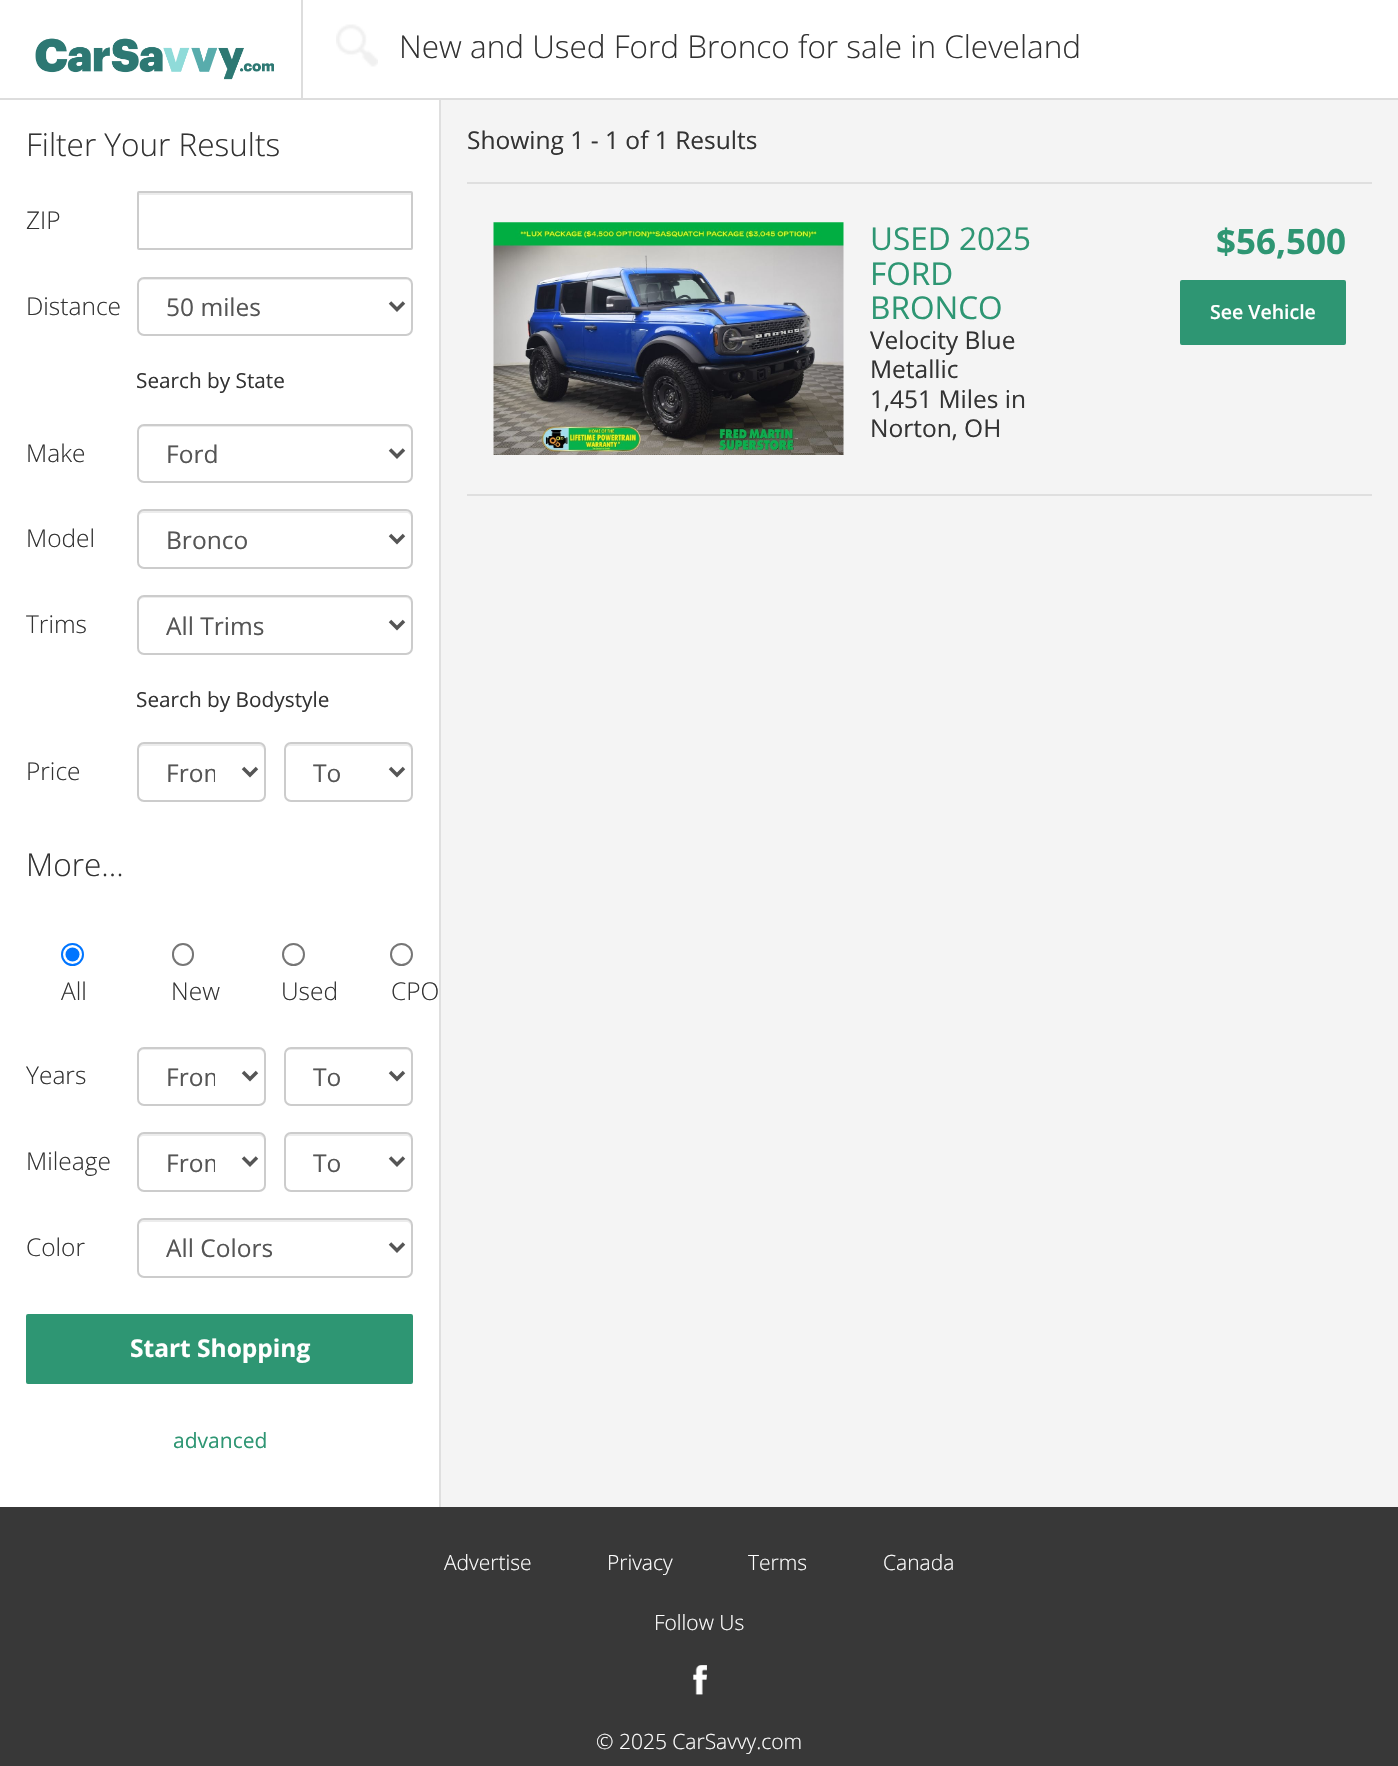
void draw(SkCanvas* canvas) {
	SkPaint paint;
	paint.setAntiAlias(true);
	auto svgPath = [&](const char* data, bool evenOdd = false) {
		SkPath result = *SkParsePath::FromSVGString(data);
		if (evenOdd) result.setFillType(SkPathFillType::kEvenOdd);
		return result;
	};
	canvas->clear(0xfff4f4f4);
	paint.setColor(0xffffffff);
	canvas->drawRect(SkRect::MakeXYWH(0, 0, 1398, 98), paint);
	paint.setColor(0xffdddddd);
	canvas->drawRect(SkRect::MakeXYWH(0, 98, 1398, 2), paint);
	canvas->drawImageRect(SkImages::DeferredFromEncodedData(SkData::MakeFromFileName("img1.png")), SkRect::MakeXYWH(35, 38, 239, 42), SkSamplingOptions());
	canvas->drawRect(SkRect::MakeXYWH(301, 0, 2, 98), paint);
	canvas->drawImageRect(SkImages::DeferredFromEncodedData(SkData::MakeFromFileName("img2.png")), SkRect::MakeXYWH(336, 24, 42, 43), SkSamplingOptions());
	SkFont f1(fontMgr->matchFamilyStyle("Open Sans", SkFontStyle(300, SkFontStyle::kNormal_Width, SkFontStyle::kUpright_Slant)), 31.5);
	f1.setSubpixel(true);
	paint.setColor(0xff333333);
	canvas->drawString("New and Used Ford Bronco for sale in Cleveland", 399, 58, f1, paint);
	paint.setColor(0xffffffff);
	canvas->drawRect(SkRect::MakeXYWH(0, 100, 439, 1407), paint);
	paint.setColor(0xffdfdfdf);
	canvas->drawRect(SkRect::MakeXYWH(439, 100, 2, 1407), paint);
	paint.setColor(0xff333333);
	canvas->drawString("Filter Your Results", 26, 156, f1, paint);
	SkFont f2(fontMgr->matchFamilyStyle("Open Sans", SkFontStyle(300, SkFontStyle::kNormal_Width, SkFontStyle::kUpright_Slant)), 24.5);
	f2.setSubpixel(true);
	canvas->drawString("ZIP", 26, 229, f2, paint);
	paint.setColor(0xffececec);
	canvas->drawRect(SkRect::MakeXYWH(138, 193, 273, 2), paint);
	paint.setStroke(true);
	paint.setStrokeWidth(2);
	paint.setColor(0xffcccccc);
	canvas->drawRoundRect(SkRect::MakeXYWH(138, 192, 274, 57), 1, 1, paint);
	paint.setStroke(false);
	paint.setColor(0xff333333);
	canvas->drawString("Distance", 26, 315, f2, paint);
	paint.setColor(0xffececec);
	canvas->drawPath(svgPath("M144 280H406C409 280 411 282 411 285V283C411 280 409 278 406 278H143C140 278 138 280 138 283V285C138 282 141 280 144 280Z"), paint);
	paint.setStroke(true);
	paint.setColor(0xffcccccc);
	canvas->drawRoundRect(SkRect::MakeXYWH(138, 278, 274, 57), 6, 6, paint);
	paint.setStrokeWidth(3.5);
	paint.setColor(0xff555555);
	canvas->drawPath(svgPath("M390 302.5L397 309.5L404 302.5"), paint);
	SkFont f3(fontMgr->matchFamilyStyle("Open Sans", SkFontStyle::Normal()), 24.5);
	f3.setSubpixel(true);
	paint.setStroke(false);
	canvas->drawString("50 miles", 166, 316, f3, paint);
	SkFont f4(fontMgr->matchFamilyStyle("Open Sans", SkFontStyle::Normal()), 20.75);
	f4.setSubpixel(true);
	paint.setColor(0xff333333);
	canvas->drawString("Search by State", 136, 388, f4, paint);
	canvas->drawString("Make", 26, 462, f2, paint);
	paint.setColor(0xffececec);
	canvas->drawPath(svgPath("M144 427H406C409 427 411 429 411 432V430C411 427 409 425 406 425H143C140 425 138 427 138 430V432C138 429 141 427 144 427Z"), paint);
	paint.setStroke(true);
	paint.setStrokeWidth(2);
	paint.setColor(0xffcccccc);
	canvas->drawRoundRect(SkRect::MakeXYWH(138, 425, 274, 57), 6, 6, paint);
	paint.setStrokeWidth(3.5);
	paint.setColor(0xff555555);
	canvas->drawPath(svgPath("M390 449.5L397 456.5L404 449.5"), paint);
	paint.setStroke(false);
	canvas->drawString("Ford", 166, 463, f3, paint);
	paint.setColor(0xff333333);
	canvas->drawString("Model", 26, 547, f2, paint);
	paint.setColor(0xffececec);
	canvas->drawPath(svgPath("M144 513H406C409 513 411 515 411 518V516C411 513 409 511 406 511H143C140 511 138 513 138 516V518C138 515 141 513 144 513Z"), paint);
	paint.setStroke(true);
	paint.setStrokeWidth(2);
	paint.setColor(0xffcccccc);
	canvas->drawRoundRect(SkRect::MakeXYWH(138, 510, 274, 58), 6, 6, paint);
	paint.setStrokeWidth(3.5);
	paint.setColor(0xff555555);
	canvas->drawPath(svgPath("M390 535L397 542L404 535"), paint);
	paint.setStroke(false);
	canvas->drawString("Bronco", 166, 549, f3, paint);
	paint.setColor(0xff333333);
	canvas->drawString("Trims", 26, 633, f2, paint);
	paint.setColor(0xffececec);
	canvas->drawPath(svgPath("M144 598H406C409 598 411 601 411 604V602C411 599 409 597 406 597H143C140 597 138 599 138 602V604C138 601 141 598 144 598Z"), paint);
	paint.setStroke(true);
	paint.setStrokeWidth(2);
	paint.setColor(0xffcccccc);
	canvas->drawRoundRect(SkRect::MakeXYWH(138, 596, 274, 58), 6, 6, paint);
	paint.setStrokeWidth(3.5);
	paint.setColor(0xff555555);
	canvas->drawPath(svgPath("M390 621L397 628L404 621"), paint);
	paint.setStroke(false);
	canvas->drawString("All Trims", 166, 635, f3, paint);
	paint.setColor(0xff333333);
	canvas->drawString("Search by Bodystyle", 136, 707, f4, paint);
	canvas->drawString("Price", 26, 780, f2, paint);
	paint.setColor(0xffececec);
	canvas->drawPath(svgPath("M144 746H259C262 746 264 748 264 751V749C264 746 262 744 259 744H143C140 744 138 746 138 749V751C138 748 141 746 144 746Z"), paint);
	paint.setStroke(true);
	paint.setStrokeWidth(2);
	paint.setColor(0xffcccccc);
	canvas->drawRoundRect(SkRect::MakeXYWH(138, 743, 127, 58), 6, 6, paint);
	paint.setStrokeWidth(3.5);
	paint.setColor(0xff555555);
	canvas->drawPath(svgPath("M243 768L250 775L257 768"), paint);
	canvas->save();
	canvas->clipRect(SkRect::MakeXYWH(166, 754, 49, 37));
	paint.setStroke(false);
	canvas->drawString("From", 166, 782, f3, paint);
	canvas->restore();
	paint.setColor(0xffececec);
	canvas->drawPath(svgPath("M290 746H406C409 746 411 748 411 751V749C411 746 409 744 406 744H290C287 744 285 746 285 749V751C285 748 288 746 290 746Z"), paint);
	paint.setStroke(true);
	paint.setStrokeWidth(2);
	paint.setColor(0xffcccccc);
	canvas->drawRoundRect(SkRect::MakeXYWH(285, 743, 127, 58), 6, 6, paint);
	paint.setStrokeWidth(3.5);
	paint.setColor(0xff555555);
	canvas->drawPath(svgPath("M390 768L397 775L404 768"), paint);
	paint.setStroke(false);
	canvas->drawString("To", 313, 782, f3, paint);
	paint.setColor(0xff333333);
	canvas->drawString("More...", 26, 876, f1, paint);
	paint.setStroke(true);
	paint.setStrokeWidth(2);
	paint.setColor(0xff0075ff);
	canvas->drawCircle(72.5, 954.5, 10.5, paint);
	paint.setStroke(false);
	canvas->drawCircle(72.5, 954.5, 7, paint);
	paint.setColor(0xff333333);
	canvas->drawString("All", 61, 1000, f2, paint);
	paint.setStroke(true);
	paint.setColor(0xff767676);
	canvas->drawRoundRect(SkRect::MakeXYWH(173, 944, 20, 21), 10, 10, paint);
	paint.setStroke(false);
	paint.setColor(0xff333333);
	canvas->drawString("New", 171, 1000, f2, paint);
	paint.setStroke(true);
	paint.setColor(0xff767676);
	canvas->drawCircle(293.5, 954.5, 10.5, paint);
	paint.setStroke(false);
	paint.setColor(0xff333333);
	canvas->drawString("Used", 281, 1000, f2, paint);
	paint.setStroke(true);
	paint.setColor(0xff767676);
	canvas->drawCircle(401.5, 954.5, 10.5, paint);
	paint.setStroke(false);
	paint.setColor(0xff333333);
	canvas->drawString("CPO", 391, 1000, f2, paint);
	canvas->drawString("Years", 26, 1084, f2, paint);
	paint.setColor(0xffececec);
	canvas->drawPath(svgPath("M144 1050H259C262 1050 264 1052 264 1055V1053C264 1050 262 1048 259 1048H143C140 1048 138 1050 138 1053V1055C138 1052 141 1050 144 1050Z"), paint);
	paint.setStroke(true);
	paint.setColor(0xffcccccc);
	canvas->drawRoundRect(SkRect::MakeXYWH(138, 1048, 127, 57), 6, 6, paint);
	paint.setStrokeWidth(3.5);
	paint.setColor(0xff555555);
	canvas->drawPath(svgPath("M243 1072L250 1079L257 1072"), paint);
	canvas->save();
	canvas->clipRect(SkRect::MakeXYWH(166, 1059, 49, 37));
	paint.setStroke(false);
	canvas->drawString("From", 166, 1086, f3, paint);
	canvas->restore();
	paint.setColor(0xffececec);
	canvas->drawPath(svgPath("M290 1050H406C409 1050 411 1052 411 1055V1053C411 1050 409 1048 406 1048H290C287 1048 285 1050 285 1053V1055C285 1052 288 1050 290 1050Z"), paint);
	paint.setStroke(true);
	paint.setStrokeWidth(2);
	paint.setColor(0xffcccccc);
	canvas->drawRoundRect(SkRect::MakeXYWH(285, 1048, 127, 57), 6, 6, paint);
	paint.setStrokeWidth(3.5);
	paint.setColor(0xff555555);
	canvas->drawPath(svgPath("M390 1072L397 1079L404 1072"), paint);
	paint.setStroke(false);
	canvas->drawString("To", 313, 1086, f3, paint);
	paint.setColor(0xff333333);
	canvas->drawString("Mileage", 26, 1170, f2, paint);
	paint.setColor(0xffececec);
	canvas->drawPath(svgPath("M144 1136H259C262 1136 264 1138 264 1141V1139C264 1136 262 1134 259 1134H143C140 1134 138 1136 138 1139V1141C138 1138 141 1136 144 1136Z"), paint);
	paint.setStroke(true);
	paint.setStrokeWidth(2);
	paint.setColor(0xffcccccc);
	canvas->drawRoundRect(SkRect::MakeXYWH(138, 1133, 127, 58), 6, 6, paint);
	paint.setStrokeWidth(3.5);
	paint.setColor(0xff555555);
	canvas->drawPath(svgPath("M243 1157.5L250 1164.5L257 1157.5"), paint);
	canvas->save();
	canvas->clipRect(SkRect::MakeXYWH(166, 1145, 49, 36));
	paint.setStroke(false);
	canvas->drawString("From", 166, 1172, f3, paint);
	canvas->restore();
	paint.setColor(0xffececec);
	canvas->drawPath(svgPath("M290 1136H406C409 1136 411 1138 411 1141V1139C411 1136 409 1134 406 1134H290C287 1134 285 1136 285 1139V1141C285 1138 288 1136 290 1136Z"), paint);
	paint.setStroke(true);
	paint.setStrokeWidth(2);
	paint.setColor(0xffcccccc);
	canvas->drawRoundRect(SkRect::MakeXYWH(285, 1133, 127, 58), 6, 6, paint);
	paint.setStrokeWidth(3.5);
	paint.setColor(0xff555555);
	canvas->drawPath(svgPath("M390 1157.5L397 1164.5L404 1157.5"), paint);
	paint.setStroke(false);
	canvas->drawString("To", 313, 1172, f3, paint);
	paint.setColor(0xff333333);
	canvas->drawString("Color", 26, 1256, f2, paint);
	paint.setColor(0xffececec);
	canvas->drawPath(svgPath("M144 1222H406C409 1222 411 1224 411 1227V1225C411 1222 409 1220 406 1220H143C140 1220 138 1222 138 1225V1227C138 1224 141 1222 144 1222Z"), paint);
	paint.setStroke(true);
	paint.setStrokeWidth(2);
	paint.setColor(0xffcccccc);
	canvas->drawRoundRect(SkRect::MakeXYWH(138, 1219, 274, 58), 6, 6, paint);
	paint.setStrokeWidth(3.5);
	paint.setColor(0xff555555);
	canvas->drawPath(svgPath("M390 1243.5L397 1250.5L404 1243.5"), paint);
	paint.setStroke(false);
	canvas->drawString("All Colors", 166, 1257, f3, paint);
	paint.setColor(0xff2e9673);
	canvas->drawRoundRect(SkRect::MakeXYWH(27, 1315, 385, 68), 1, 1, paint);
	paint.setStroke(true);
	paint.setStrokeWidth(2);
	canvas->drawRoundRect(SkRect::MakeXYWH(27, 1315, 385, 68), 1, 1, paint);
	SkFont f5(fontMgr->matchFamilyStyle("Open Sans", SkFontStyle::Bold()), 24.5);
	f5.setSubpixel(true);
	paint.setStroke(false);
	paint.setColor(0xffffffff);
	canvas->drawString("Start Shopping", 130, 1357, f5, paint);
	SkFont f6(fontMgr->matchFamilyStyle("Open Sans", SkFontStyle::Normal()), 21);
	f6.setSubpixel(true);
	paint.setColor(0xff2e9673);
	canvas->drawString("advanced", 173, 1448, f6, paint);
	paint.setColor(0xffdfdfdf);
	canvas->drawRect(SkRect::MakeXYWH(467, 182, 905, 2), paint);
	paint.setColor(0xff333333);
	canvas->drawString("Showing 1 - 1 of 1 Results", 467, 149, f3, paint);
	paint.setColor(0xffdfdfdf);
	canvas->drawRect(SkRect::MakeXYWH(467, 494, 905, 2), paint);
	canvas->drawImageRect(SkImages::DeferredFromEncodedData(SkData::MakeFromFileName("img3.png")), SkRect::MakeXYWH(493, 222, 351, 233), SkSamplingOptions());
	SkFont f7(fontMgr->matchFamilyStyle("Open Sans", SkFontStyle::Normal()), 31.5);
	f7.setSubpixel(true);
	paint.setColor(0xff2e9673);
	canvas->drawString("USED 2025", 870, 250, f7, paint);
	canvas->drawString("FORD", 870, 285, f7, paint);
	canvas->drawString("BRONCO", 870, 319, f7, paint);
	paint.setColor(0xff333333);
	canvas->drawString("Velocity Blue", 870, 349, f3, paint);
	canvas->drawString("Metallic", 870, 378, f3, paint);
	canvas->drawString("1,451 Miles in", 870, 408, f3, paint);
	canvas->drawString("Norton, OH", 870, 437, f3, paint);
	SkFont f8(fontMgr->matchFamilyStyle("Open Sans", SkFontStyle::Bold()), 35);
	f8.setSubpixel(true);
	paint.setColor(0xff2e9673);
	canvas->drawString("$56,500", 1216, 254, f8, paint);
	canvas->drawRoundRect(SkRect::MakeXYWH(1181, 281, 164, 63), 1, 1, paint);
	paint.setStroke(true);
	canvas->drawRoundRect(SkRect::MakeXYWH(1181, 281, 164, 63), 1, 1, paint);
	SkFont f9(fontMgr->matchFamilyStyle("Open Sans", SkFontStyle(600, SkFontStyle::kNormal_Width, SkFontStyle::kUpright_Slant)), 19.5);
	f9.setSubpixel(true);
	paint.setStroke(false);
	paint.setColor(0xffffffff);
	canvas->drawString("See Vehicle", 1210, 319, f9, paint);
	paint.setColor(0xff383838);
	canvas->drawRect(SkRect::MakeXYWH(0, 1507, 1398, 259), paint);
	SkFont f10(fontMgr->matchFamilyStyle("Open Sans", SkFontStyle(300, SkFontStyle::kNormal_Width, SkFontStyle::kUpright_Slant)), 21);
	f10.setSubpixel(true);
	paint.setColor(0xffffffff);
	canvas->drawString("Advertise", 444, 1570, f10, paint);
	canvas->drawString("Privacy", 607, 1570, f10, paint);
	canvas->drawString("Terms", 748, 1570, f10, paint);
	canvas->drawString("Canada", 883, 1570, f10, paint);
	canvas->drawString("Follow Us", 654, 1630, f10, paint);
	canvas->drawImageRect(SkImages::DeferredFromEncodedData(SkData::MakeFromFileName("img4.png")), SkRect::MakeXYWH(693, 1665, 14, 30), SkSamplingOptions());
	canvas->drawString("© 2025 CarSavvy.com", 596, 1749, f10, paint);
}
